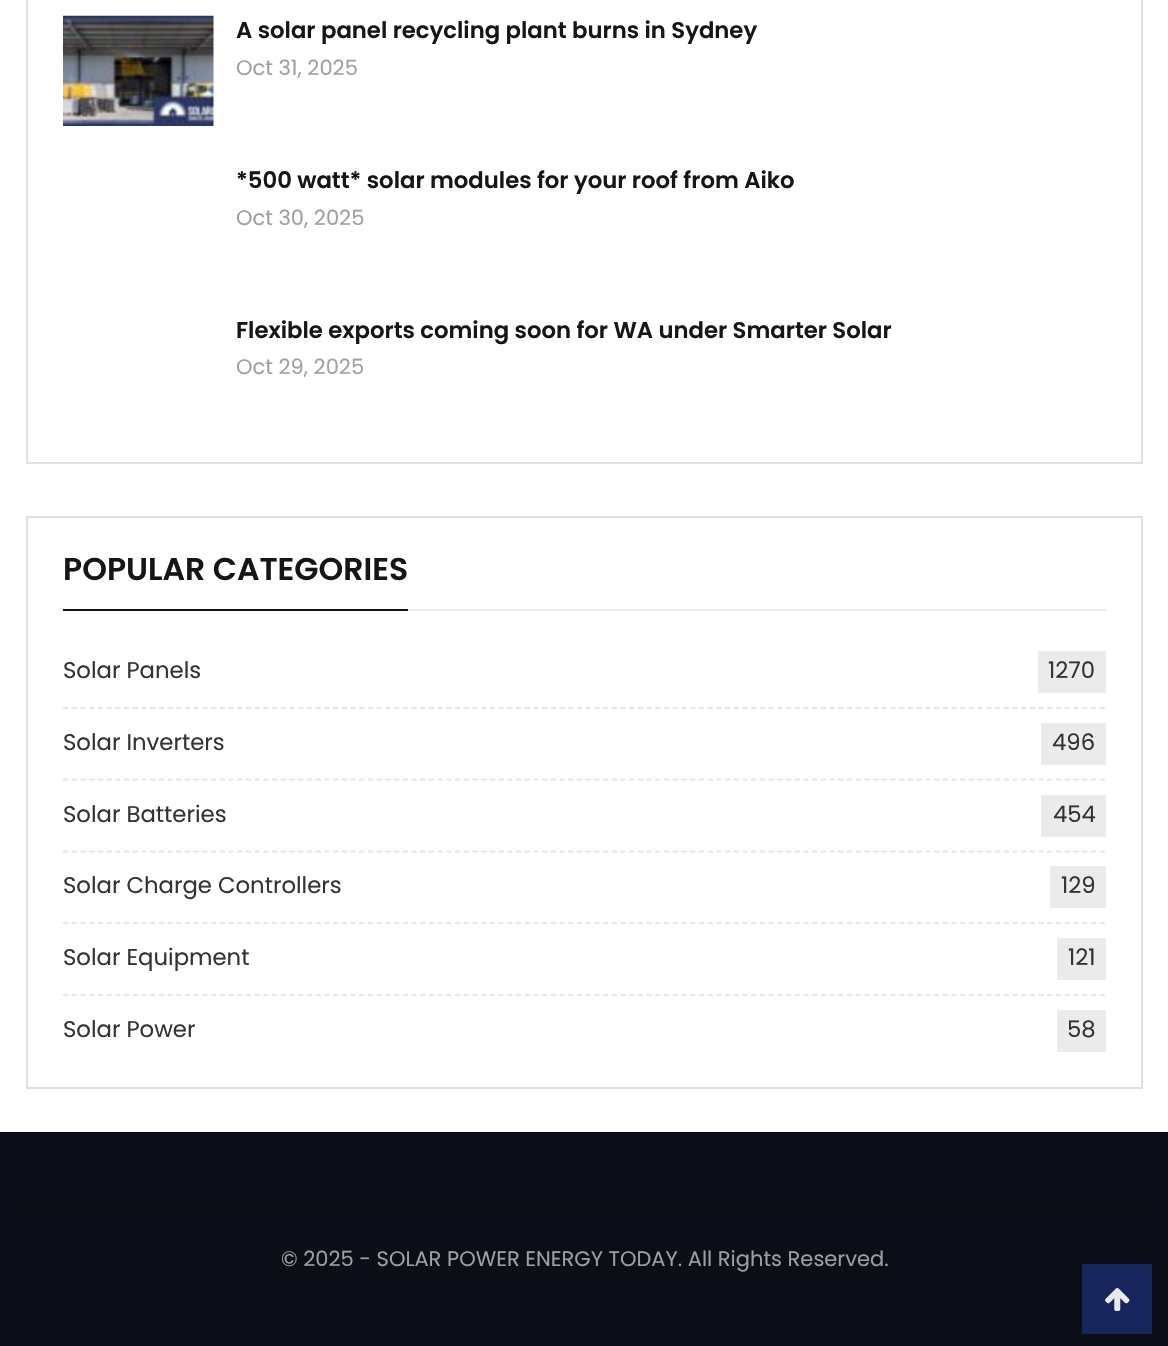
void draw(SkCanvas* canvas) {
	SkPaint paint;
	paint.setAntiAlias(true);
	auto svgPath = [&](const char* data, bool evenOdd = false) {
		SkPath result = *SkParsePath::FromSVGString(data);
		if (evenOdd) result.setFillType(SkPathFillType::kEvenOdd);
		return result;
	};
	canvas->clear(0xff0c0e17);
	paint.setColor(0xffffffff);
	canvas->drawRect(SkRect::MakeXYWH(0, 0, 1168, 1132), paint);
	paint.setStroke(true);
	paint.setStrokeWidth(2);
	paint.setColor(0xffe0e0e0);
	canvas->drawRect(SkRect::MakeXYWH(27, -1, 1115, 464), paint);
	canvas->drawImageRect(SkImages::DeferredFromEncodedData(SkData::MakeFromFileName("img1.png")), SkRect::MakeXYWH(63, 15, 151, 111), SkSamplingOptions());
	SkFont f1(fontMgr->matchFamilyStyle("Poppins", SkFontStyle(600, SkFontStyle::kNormal_Width, SkFontStyle::kUpright_Slant)), 22.75);
	f1.setSubpixel(true);
	paint.setStroke(false);
	paint.setColor(0xff161616);
	canvas->drawString("A solar panel recycling plant burns in Sydney", 236, 38, f1, paint);
	SkFont f2(fontMgr->matchFamilyStyle("Poppins", SkFontStyle::Normal()), 21);
	f2.setSubpixel(true);
	paint.setColor(0xff9e9fa2);
	canvas->drawString("Oct 31, 2025", 236, 75, f2, paint);
	paint.setColor(0xff161616);
	canvas->drawString("*500 watt* solar modules for your roof from Aiko", 236, 188, f1, paint);
	paint.setColor(0xff9e9fa2);
	canvas->drawString("Oct 30, 2025", 236, 225, f2, paint);
	paint.setColor(0xff161616);
	canvas->drawString("Flexible exports coming soon for WA under Smarter Solar", 236, 338, f1, paint);
	paint.setColor(0xff9e9fa2);
	canvas->drawString("Oct 29, 2025", 236, 374, f2, paint);
	paint.setStroke(true);
	paint.setColor(0xffe0e0e0);
	canvas->drawRect(SkRect::MakeXYWH(27, 517, 1115, 571), paint);
	SkFont f3(fontMgr->matchFamilyStyle("Poppins", SkFontStyle(600, SkFontStyle::kNormal_Width, SkFontStyle::kUpright_Slant)), 31.5);
	f3.setSubpixel(true);
	paint.setStroke(false);
	paint.setColor(0xff161616);
	canvas->drawString("POPULAR CATEGORIES", 63, 580, f3, paint);
	paint.setColor(0xff111111);
	canvas->drawRect(SkRect::MakeXYWH(63, 609, 345, 2), paint);
	paint.setColor(0xffededed);
	canvas->drawRect(SkRect::MakeXYWH(408, 609, 698, 2), paint);
	paint.setStroke(true);
	paint.setStrokeWidth(1.8);
	paint.setColor(0xffe6e6e6);
	paint.setPathEffect(SkDashPathEffect::Make({{5.25f, 3.46f}}, 0));
	canvas->drawPath(svgPath("M63 708H1106"), paint);
	paint.setPathEffect(nullptr);
	SkFont f4(fontMgr->matchFamilyStyle("Poppins", SkFontStyle::Normal()), 22.75);
	f4.setSubpixel(true);
	paint.setStroke(false);
	paint.setColor(0xff333333);
	canvas->drawString("Solar Panels", 63, 678, f4, paint);
	paint.setColor(0xffebebeb);
	canvas->drawRect(SkRect::MakeXYWH(1038, 651, 68, 42), paint);
	paint.setColor(0xff333333);
	canvas->drawString("1270", 1048, 678, f4, paint);
	paint.setStroke(true);
	paint.setColor(0xffe6e6e6);
	paint.setPathEffect(SkDashPathEffect::Make({{5.25f, 3.46f}}, 0));
	canvas->drawPath(svgPath("M63 779.5H1106"), paint);
	paint.setPathEffect(nullptr);
	paint.setStroke(false);
	paint.setColor(0xff333333);
	canvas->drawString("Solar Inverters", 63, 750, f4, paint);
	paint.setColor(0xffebebeb);
	canvas->drawRect(SkRect::MakeXYWH(1041, 723, 65, 42), paint);
	paint.setColor(0xff333333);
	canvas->drawString("496", 1052, 750, f4, paint);
	paint.setStroke(true);
	paint.setColor(0xffe6e6e6);
	paint.setPathEffect(SkDashPathEffect::Make({{5.25f, 3.46f}}, 0));
	canvas->drawPath(svgPath("M63 851.5H1106"), paint);
	paint.setPathEffect(nullptr);
	paint.setStroke(false);
	paint.setColor(0xff333333);
	canvas->drawString("Solar Batteries", 63, 822, f4, paint);
	paint.setColor(0xffebebeb);
	canvas->drawRect(SkRect::MakeXYWH(1041, 795, 65, 42), paint);
	paint.setColor(0xff333333);
	canvas->drawString("454", 1053, 822, f4, paint);
	paint.setStroke(true);
	paint.setColor(0xffe6e6e6);
	paint.setPathEffect(SkDashPathEffect::Make({{5.25f, 3.46f}}, 0));
	canvas->drawPath(svgPath("M63 923H1106"), paint);
	paint.setPathEffect(nullptr);
	paint.setStroke(false);
	paint.setColor(0xff333333);
	canvas->drawString("Solar Charge Controllers", 63, 893, f4, paint);
	paint.setColor(0xffebebeb);
	canvas->drawRect(SkRect::MakeXYWH(1050, 866, 56, 42), paint);
	paint.setColor(0xff333333);
	canvas->drawString("129", 1061, 893, f4, paint);
	paint.setStroke(true);
	paint.setColor(0xffe6e6e6);
	paint.setPathEffect(SkDashPathEffect::Make({{5.25f, 3.46f}}, 0));
	canvas->drawPath(svgPath("M63 995H1106"), paint);
	paint.setPathEffect(nullptr);
	paint.setStroke(false);
	paint.setColor(0xff333333);
	canvas->drawString("Solar Equipment", 63, 965, f4, paint);
	paint.setColor(0xffebebeb);
	canvas->drawRect(SkRect::MakeXYWH(1057, 938, 49, 42), paint);
	paint.setColor(0xff333333);
	canvas->drawString("121", 1068, 965, f4, paint);
	canvas->drawString("Solar Power", 63, 1037, f4, paint);
	paint.setColor(0xffebebeb);
	canvas->drawRect(SkRect::MakeXYWH(1057, 1010, 49, 42), paint);
	paint.setColor(0xff333333);
	canvas->drawString("58", 1067, 1037, f4, paint);
	paint.setColor(0xff0b0c14);
	canvas->drawRect(SkRect::MakeXYWH(26, 1206, 1117, 4), paint);
	paint.setColor(0xff9e9fa2);
	canvas->drawString("© 2025 - SOLAR POWER ENERGY TODAY. All Rights Reserved.", 281, 1266, f2, paint);
	paint.setColor(0xff18255d);
	canvas->drawRect(SkRect::MakeXYWH(1082, 1264, 70, 70), paint);
	canvas->drawImageRect(SkImages::DeferredFromEncodedData(SkData::MakeFromFileName("img2.png")), SkRect::MakeXYWH(1105, 1288, 25, 23), SkSamplingOptions());
}
